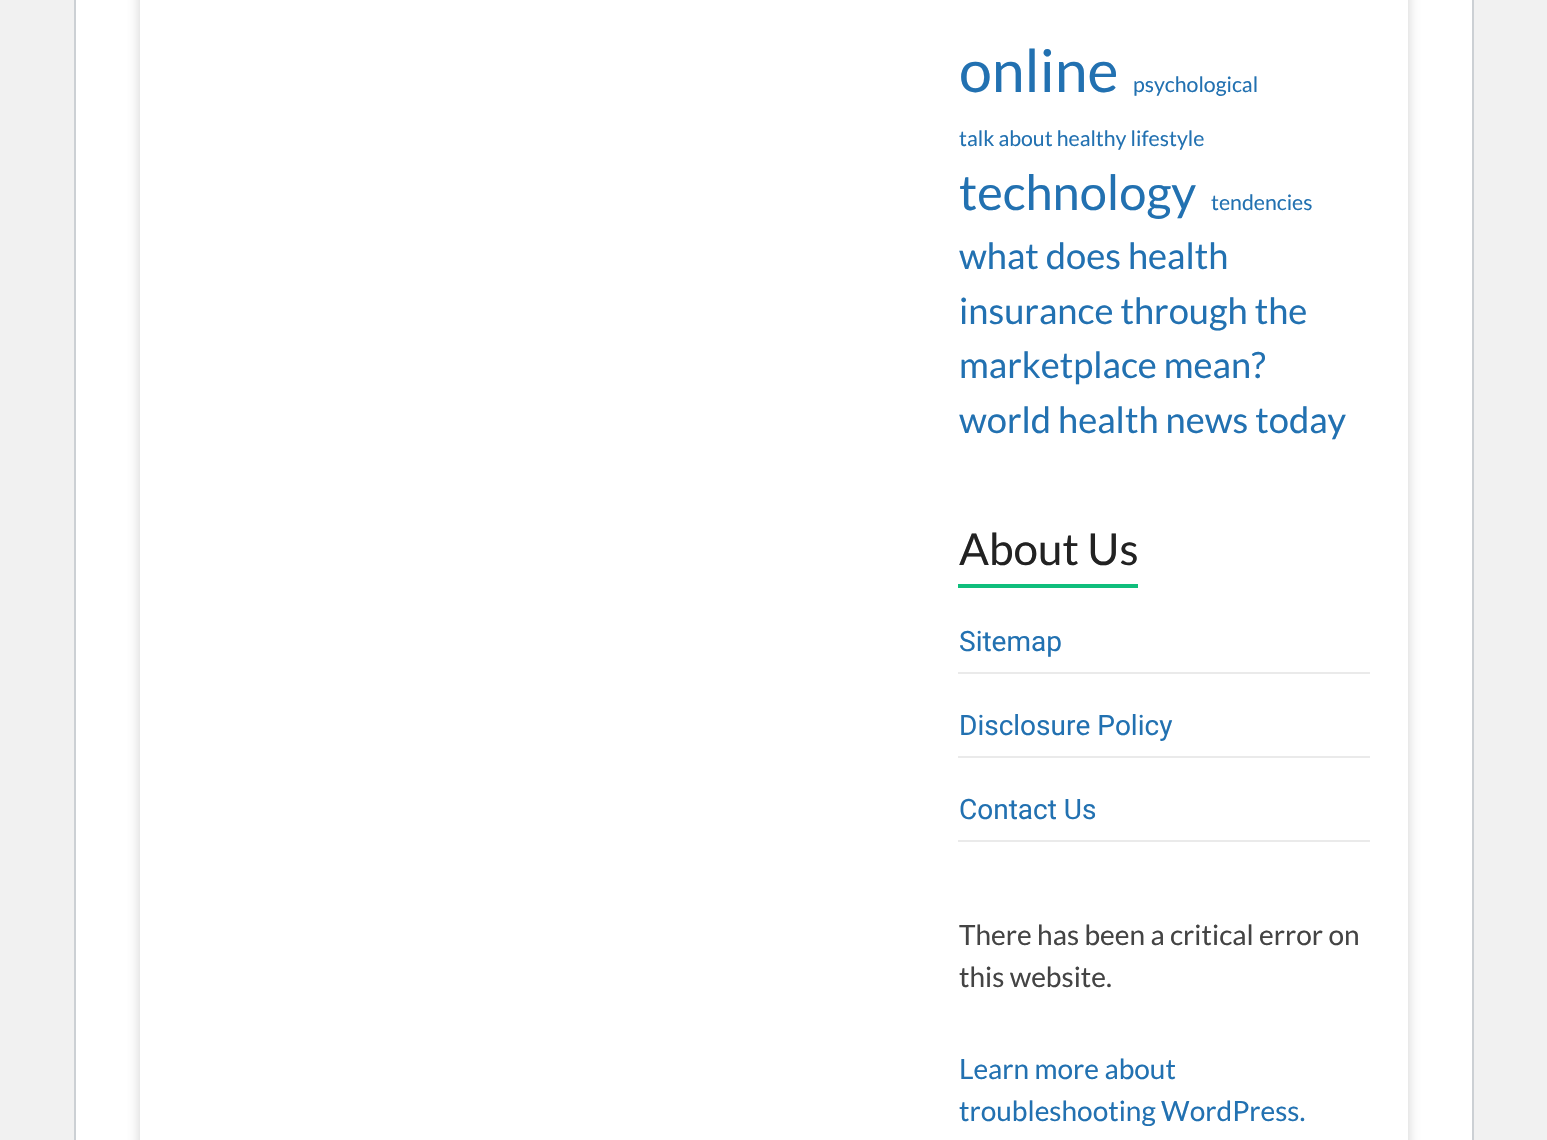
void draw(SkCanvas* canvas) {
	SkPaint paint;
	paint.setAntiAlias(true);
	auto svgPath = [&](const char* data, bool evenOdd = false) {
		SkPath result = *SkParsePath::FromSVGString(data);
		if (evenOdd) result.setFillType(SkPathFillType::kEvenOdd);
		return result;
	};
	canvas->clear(0xfff1f1f1);
	paint.setColor(0xffffffff);
	canvas->drawRect(SkRect::MakeXYWH(75, -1, 1398, 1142), paint);
	paint.setStroke(true);
	paint.setStrokeWidth(2);
	paint.setColor(0xffccd0d4);
	canvas->drawRect(SkRect::MakeXYWH(75, -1, 1398, 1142), paint);
	canvas->save();
	canvas->clipPath(svgPath("M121 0H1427V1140H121ZM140-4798H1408V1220H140Z", true), true);
	paint.setStroke(false);
	paint.setColor(0x4d646464);
	paint.setMaskFilter(SkMaskFilter::MakeBlur(kNormal_SkBlurStyle, 6));
	canvas->drawRect(SkRect::MakeXYWH(140, -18, 1268, 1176), paint);
	paint.setMaskFilter(nullptr);
	canvas->restore();
	SkFont f1(fontMgr->matchFamilyStyle("Lato", SkFontStyle::Normal()), 59);
	f1.setSubpixel(true);
	paint.setColor(0xff2271b1);
	canvas->drawString("online", 959, 92, f1, paint);
	SkFont f2(fontMgr->matchFamilyStyle("Lato", SkFontStyle::Normal()), 21.25);
	f2.setSubpixel(true);
	canvas->drawString("psychological", 1133, 92, f2, paint);
	canvas->drawString("talk about healthy lifestyle", 959, 146, f2, paint);
	SkFont f3(fontMgr->matchFamilyStyle("Lato", SkFontStyle::Normal()), 48.75);
	f3.setSubpixel(true);
	canvas->drawString("technology", 959, 210, f3, paint);
	canvas->drawString("tendencies", 1211, 210, f2, paint);
	SkFont f4(fontMgr->matchFamilyStyle("Lato", SkFontStyle::Normal()), 36.25);
	f4.setSubpixel(true);
	canvas->drawString("what does health", 959, 269, f4, paint);
	canvas->drawString("insurance through the", 959, 324, f4, paint);
	canvas->drawString("marketplace mean?", 959, 378, f4, paint);
	canvas->drawString("world health news today", 959, 433, f4, paint);
	SkFont f5(fontMgr->matchFamilyStyle("Lato", SkFontStyle::Normal()), 44);
	f5.setSubpixel(true);
	paint.setColor(0xff222222);
	canvas->drawString("About Us", 959, 565, f5, paint);
	paint.setColor(0xff0fbe7c);
	canvas->drawRect(SkRect::MakeXYWH(958, 584, 180, 4), paint);
	paint.setColor(0xffeaeaea);
	canvas->drawRect(SkRect::MakeXYWH(958, 672, 412, 2), paint);
	SkFont f6(fontMgr->matchFamilyStyle("Roboto", SkFontStyle::Normal()), 28);
	f6.setSubpixel(true);
	paint.setColor(0xff2271b1);
	canvas->drawString("Sitemap", 959, 651, f6, paint);
	paint.setColor(0xffeaeaea);
	canvas->drawRect(SkRect::MakeXYWH(958, 756, 412, 2), paint);
	paint.setColor(0xff2271b1);
	canvas->drawString("Disclosure Policy", 959, 735, f6, paint);
	paint.setColor(0xffeaeaea);
	canvas->drawRect(SkRect::MakeXYWH(958, 840, 412, 2), paint);
	paint.setColor(0xff2271b1);
	canvas->drawString("Contact Us", 959, 819, f6, paint);
	SkFont f7(fontMgr->matchFamilyStyle("Lato", SkFontStyle::Normal()), 28);
	f7.setSubpixel(true);
	paint.setColor(0xff444444);
	canvas->drawString("There has been a critical error on", 959, 945, f7, paint);
	canvas->drawString("this website.", 959, 987, f7, paint);
	paint.setColor(0xff2271b1);
	canvas->drawString("Learn more about", 959, 1079, f7, paint);
	canvas->drawString("troubleshooting WordPress.", 959, 1121, f7, paint);
}
